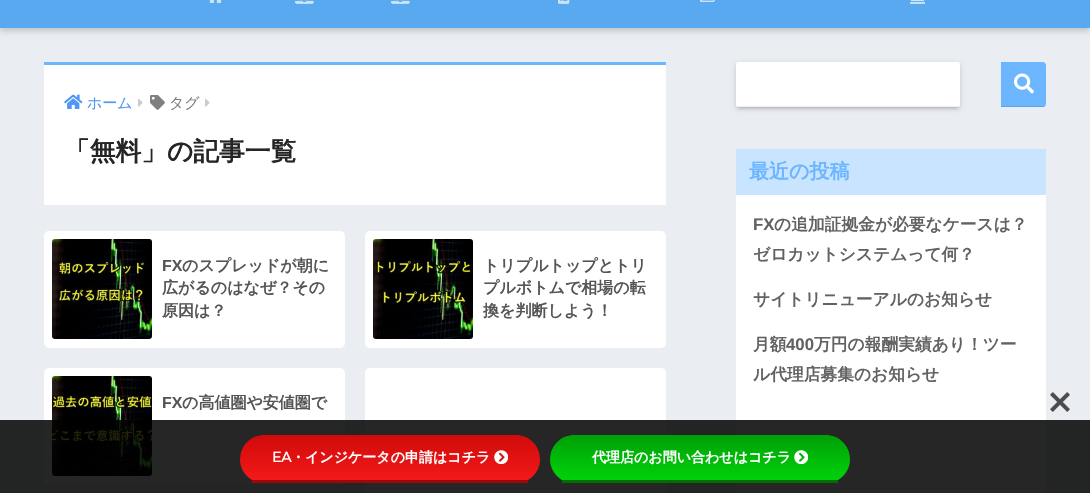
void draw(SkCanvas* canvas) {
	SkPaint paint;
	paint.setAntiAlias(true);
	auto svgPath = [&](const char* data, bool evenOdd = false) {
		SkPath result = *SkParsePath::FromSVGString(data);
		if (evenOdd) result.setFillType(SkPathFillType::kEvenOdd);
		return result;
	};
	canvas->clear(0xffeaedf2);
	paint.setColor(0x2e000000);
	paint.setMaskFilter(SkMaskFilter::MakeBlur(kNormal_SkBlurStyle, 3));
	canvas->drawRect(SkRect::MakeXYWH(0, -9, 1090, 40), paint);
	paint.setMaskFilter(nullptr);
	paint.setColor(0xff58a9ef);
	canvas->drawRect(SkRect::MakeXYWH(0, 0, 1090, 28), paint);
	canvas->drawImageRect(SkImages::DeferredFromEncodedData(SkData::MakeFromFileName("img1.png")), SkRect::MakeXYWH(209, 0, 13, 3), SkSamplingOptions());
	canvas->drawImageRect(SkImages::DeferredFromEncodedData(SkData::MakeFromFileName("img2.png")), SkRect::MakeXYWH(295, 0, 19, 4), SkSamplingOptions());
	canvas->drawImageRect(SkImages::DeferredFromEncodedData(SkData::MakeFromFileName("img2.png")), SkRect::MakeXYWH(391, 0, 19, 4), SkSamplingOptions());
	canvas->drawImageRect(SkImages::DeferredFromEncodedData(SkData::MakeFromFileName("img3.png")), SkRect::MakeXYWH(558, 0, 12, 4), SkSamplingOptions());
	canvas->drawImageRect(SkImages::DeferredFromEncodedData(SkData::MakeFromFileName("img4.png")), SkRect::MakeXYWH(700, 0, 15, 2), SkSamplingOptions());
	canvas->drawImageRect(SkImages::DeferredFromEncodedData(SkData::MakeFromFileName("img5.png")), SkRect::MakeXYWH(910, 0, 15, 4), SkSamplingOptions());
	paint.setColor(0xffffffff);
	canvas->drawRect(SkRect::MakeXYWH(44, 65, 622, 140), paint);
	paint.setColor(0xff6bb6ff);
	canvas->drawRect(SkRect::MakeXYWH(44, 62, 622, 3), paint);
	canvas->drawImageRect(SkImages::DeferredFromEncodedData(SkData::MakeFromFileName("img6.png")), SkRect::MakeXYWH(64, 94, 19, 15), SkSamplingOptions());
	SkFont f1(fontMgr->matchFamilyStyle("WenQuanYi Zen Hei", SkFontStyle(500, SkFontStyle::kNormal_Width, SkFontStyle::kUpright_Slant)), 15);
	f1.setSubpixel(true);
	paint.setColor(0xff4f96f6);
	canvas->drawString("ホーム", 87, 108, f1, paint);
	canvas->drawImageRect(SkImages::DeferredFromEncodedData(SkData::MakeFromFileName("img7.png")), SkRect::MakeXYWH(138, 98, 5, 9), SkSamplingOptions());
	canvas->drawImageRect(SkImages::DeferredFromEncodedData(SkData::MakeFromFileName("img8.png")), SkRect::MakeXYWH(150, 95, 15, 15), SkSamplingOptions());
	paint.setColor(0xff808080);
	canvas->drawString("タグ", 169, 108, f1, paint);
	canvas->drawImageRect(SkImages::DeferredFromEncodedData(SkData::MakeFromFileName("img7.png")), SkRect::MakeXYWH(205, 98, 5, 9), SkSamplingOptions());
	SkFont f2(fontMgr->matchFamilyStyle("WenQuanYi Zen Hei", SkFontStyle::Bold()), 25.75);
	f2.setSubpixel(true);
	paint.setColor(0xff252525);
	canvas->drawString("「無料」の記事一覧", 64, 160, f2, paint);
	paint.setColor(0xffffffff);
	canvas->drawRoundRect(SkRect::MakeXYWH(44, 231, 301, 117), 5, 5, paint);
	canvas->drawImageRect(SkImages::DeferredFromEncodedData(SkData::MakeFromFileName("img9.png")), SkRect::MakeXYWH(52, 239, 100, 100), SkSamplingOptions());
	SkFont f3(fontMgr->matchFamilyStyle("Liberation Sans", SkFontStyle::Bold()), 16);
	f3.setSubpixel(true);
	paint.setColor(0xff555555);
	canvas->drawString("FX", 162, 271, f3, paint);
	SkFont f4(fontMgr->matchFamilyStyle("WenQuanYi Zen Hei", SkFontStyle::Bold()), 16);
	f4.setSubpixel(true);
	canvas->drawString("のスプレッドが朝に", 182, 271, f4, paint);
	canvas->drawString("広がるのはなぜ？その", 162, 293, f4, paint);
	canvas->drawString("原因は？", 162, 316, f4, paint);
	paint.setColor(0xffffffff);
	canvas->drawRoundRect(SkRect::MakeXYWH(365, 231, 301, 117), 5, 5, paint);
	canvas->drawImageRect(SkImages::DeferredFromEncodedData(SkData::MakeFromFileName("img10.png")), SkRect::MakeXYWH(373, 239, 100, 100), SkSamplingOptions());
	paint.setColor(0xff555555);
	canvas->drawString("トリプルトップとトリ", 483, 271, f4, paint);
	canvas->drawString("プルボトムで相場の転", 483, 293, f4, paint);
	canvas->drawString("換を判断しよう！", 483, 316, f4, paint);
	paint.setColor(0xffffffff);
	canvas->drawRoundRect(SkRect::MakeXYWH(44, 368, 301, 117), 5, 5, paint);
	canvas->drawImageRect(SkImages::DeferredFromEncodedData(SkData::MakeFromFileName("img11.png")), SkRect::MakeXYWH(52, 376, 100, 100), SkSamplingOptions());
	paint.setColor(0xff555555);
	canvas->drawString("FX", 162, 408, f3, paint);
	canvas->drawString("の高値圏や安値圏で", 182, 408, f4, paint);
	paint.setColor(0xffffffff);
	canvas->drawRoundRect(SkRect::MakeXYWH(365, 368, 301, 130), 5, 5, paint);
	paint.setColor(0x26000000);
	paint.setMaskFilter(SkMaskFilter::MakeBlur(kNormal_SkBlurStyle, 1.5));
	canvas->drawRect(SkRect::MakeXYWH(738, 67, 220, 41), paint);
	paint.setMaskFilter(nullptr);
	paint.setMaskFilter(SkMaskFilter::MakeBlur(kNormal_SkBlurStyle, 2.5));
	canvas->drawRoundRect(SkRect::MakeXYWH(736, 64, 224, 45), 2, 2, paint);
	paint.setMaskFilter(nullptr);
	paint.setColor(0xffffffff);
	canvas->drawRoundRect(SkRect::MakeXYWH(736, 62, 224, 45), 2, 2, paint);
	paint.setColor(0xffefefef);
	canvas->drawRect(SkRect::MakeXYWH(737, 106, 222, 1), paint);
	paint.setColor(0xff6bb6ff);
	canvas->drawPath(svgPath("M1001 62H1043C1044.5 62 1046 63.5 1046 65V104C1046 105.5 1044.5 107 1043 107H1001Z"), paint);
	paint.setColor(0x1a000000);
	canvas->drawRect(SkRect::MakeXYWH(1001, 106, 44, 1), paint);
	canvas->drawImageRect(SkImages::DeferredFromEncodedData(SkData::MakeFromFileName("img12.png")), SkRect::MakeXYWH(1014, 73, 20, 21), SkSamplingOptions());
	paint.setColor(0xffc8e4ff);
	canvas->drawRect(SkRect::MakeXYWH(736, 149, 310, 46), paint);
	SkFont f5(fontMgr->matchFamilyStyle("WenQuanYi Zen Hei", SkFontStyle::Bold()), 20);
	f5.setSubpixel(true);
	paint.setColor(0xff6bb6ff);
	canvas->drawString("最近の投稿", 749, 178, f5, paint);
	paint.setColor(0xffffffff);
	canvas->drawRect(SkRect::MakeXYWH(736, 195, 310, 298), paint);
	SkFont f6(fontMgr->matchFamilyStyle("Liberation Sans", SkFontStyle::Bold()), 16.75);
	f6.setSubpixel(true);
	paint.setColor(0xff626262);
	canvas->drawString("FX", 753, 230, f6, paint);
	SkFont f7(fontMgr->matchFamilyStyle("WenQuanYi Zen Hei", SkFontStyle::Bold()), 16.75);
	f7.setSubpixel(true);
	canvas->drawString("の追加証拠金が必要なケースは？", 774, 230, f7, paint);
	canvas->drawString("ゼロカットシステムって何？", 753, 260, f7, paint);
	canvas->drawString("サイトリニューアルのお知らせ", 753, 305, f7, paint);
	canvas->drawString("月額", 753, 350, f7, paint);
	canvas->drawString("400", 786, 350, f6, paint);
	canvas->drawString("万円の報酬実績あり！ツー", 814, 350, f7, paint);
	canvas->drawString("ル代理店募集のお知らせ", 753, 380, f7, paint);
	paint.setColor(0xd9000000);
	canvas->drawRect(SkRect::MakeXYWH(0, 420, 1090, 73), paint);
	canvas->drawImageRect(SkImages::DeferredFromEncodedData(SkData::MakeFromFileName("img13.png")), SkRect::MakeXYWH(1050, 392, 20, 20), SkSamplingOptions());
	canvas->save();
	canvas->clipPath(svgPath("M264 435H516C529.5 435 540 445.5 540 459C540 472.5 529.5 483 516 483H264C250.5 483 240 472.5 240 459C240 445.5 250.5 435 264 435Z"), true);
	{
		const SkColor colors[] = {0xffd00a0a, 0xfff41919};
		const float stops[] = {0, 1};
		const SkPoint ends[] = {{390, 435}, {390, 480}};
		paint.setShader(SkGradientShader::MakeLinear(ends, colors, stops, 2, SkTileMode::kClamp));
		paint.setAlpha(255);
	}
	canvas->drawPath(svgPath("M264 435H516C529.5 435 540 445.5 540 459V480H240V459C240 445.5 250.5 435 264 435Z"), paint);
	canvas->restore();
	paint.setShader(nullptr);
	paint.setColor(0xff9f0808);
	canvas->drawRect(SkRect::MakeXYWH(252, 480, 276, 3), paint);
	SkFont f8(fontMgr->matchFamilyStyle("Montserrat", SkFontStyle::Bold()), 14);
	f8.setSubpixel(true);
	paint.setColor(0xffffffff);
	canvas->drawString("EA", 272, 462, f8, paint);
	SkFont f9(fontMgr->matchFamilyStyle("WenQuanYi Zen Hei", SkFontStyle::Bold()), 14);
	f9.setSubpixel(true);
	canvas->drawString("・インジケータの申請はコチラ", 291, 462, f9, paint);
	canvas->drawImageRect(SkImages::DeferredFromEncodedData(SkData::MakeFromFileName("img14.png")), SkRect::MakeXYWH(494, 450, 14, 14), SkSamplingOptions());
	canvas->save();
	canvas->clipPath(svgPath("M574 435H826C839.5 435 850 445.5 850 459C850 472.5 839.5 483 826 483H574C560.5 483 550 472.5 550 459C550 445.5 560.5 435 574 435Z"), true);
	{
		const SkColor colors[] = {0xff009f07, 0xff00d209};
		const float stops[] = {0, 1};
		const SkPoint ends[] = {{700, 435}, {700, 480}};
		paint.setShader(SkGradientShader::MakeLinear(ends, colors, stops, 2, SkTileMode::kClamp));
		paint.setAlpha(255);
	}
	canvas->drawPath(svgPath("M574 435H826C839.5 435 850 445.5 850 459V480H550V459C550 445.5 560.5 435 574 435Z"), paint);
	canvas->restore();
	paint.setShader(nullptr);
	paint.setColor(0xff006c05);
	canvas->drawRect(SkRect::MakeXYWH(562, 480, 276, 3), paint);
	paint.setColor(0xffffffff);
	canvas->drawString("代理店のお問い合わせはコチラ", 592, 462, f9, paint);
	canvas->drawImageRect(SkImages::DeferredFromEncodedData(SkData::MakeFromFileName("img15.png")), SkRect::MakeXYWH(794, 450, 14, 14), SkSamplingOptions());
}
